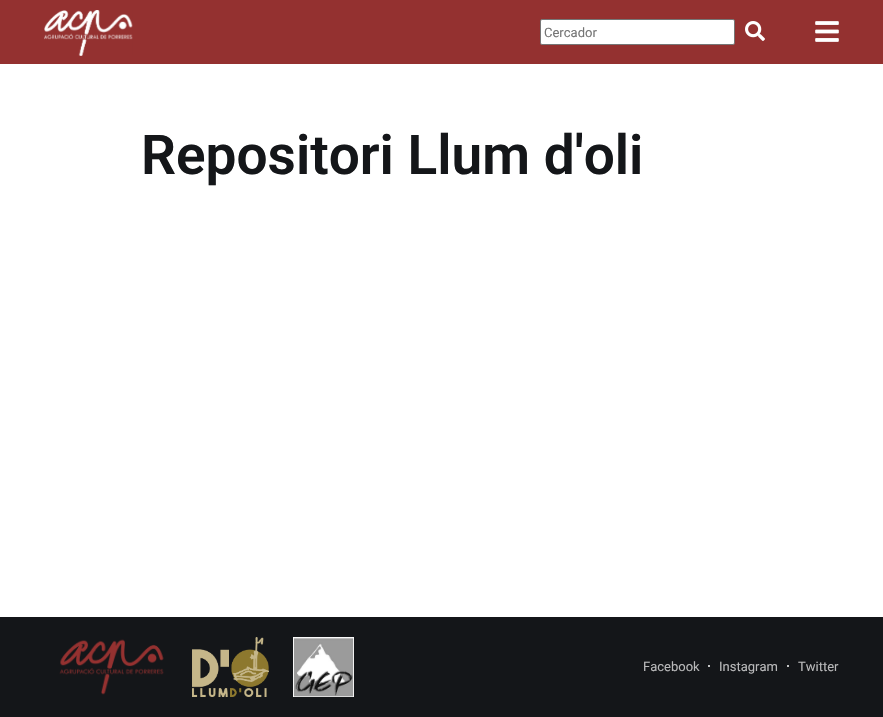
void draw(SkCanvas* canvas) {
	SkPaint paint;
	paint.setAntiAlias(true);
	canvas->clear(0xffffffff);
	paint.setColor(0xff943130);
	canvas->drawRect(SkRect::MakeXYWH(0, 0, 883, 64), paint);
	canvas->drawImageRect(SkImages::DeferredFromEncodedData(SkData::MakeFromFileName("img1.png")), SkRect::MakeXYWH(44, 10, 89, 46), SkSamplingOptions());
	paint.setColor(0xffffffff);
	canvas->drawRoundRect(SkRect::MakeXYWH(540.5, 19.5, 194, 25), 1.5, 1.5, paint);
	paint.setStroke(true);
	paint.setStrokeWidth(1);
	paint.setColor(0xff767676);
	canvas->drawRoundRect(SkRect::MakeXYWH(540.5, 19.5, 194, 25), 1.5, 1.5, paint);
	SkFont f1(fontMgr->matchFamilyStyle("Roboto", SkFontStyle::Normal()), 13);
	f1.setSubpixel(true);
	paint.setStroke(false);
	paint.setColor(0xff757575);
	canvas->drawString("Cercador", 544, 37, f1, paint);
	canvas->drawImageRect(SkImages::DeferredFromEncodedData(SkData::MakeFromFileName("img2.png")), SkRect::MakeXYWH(745, 21, 20, 20), SkSamplingOptions());
	canvas->drawImageRect(SkImages::DeferredFromEncodedData(SkData::MakeFromFileName("img3.png")), SkRect::MakeXYWH(815, 21, 24, 21), SkSamplingOptions());
	SkFont f2(fontMgr->matchFamilyStyle("Roboto", SkFontStyle(600, SkFontStyle::kNormal_Width, SkFontStyle::kUpright_Slant)), 55);
	f2.setSubpixel(true);
	paint.setColor(0xff141619);
	canvas->drawString("Repositori Llum d'oli", 141, 174, f2, paint);
	canvas->drawRect(SkRect::MakeXYWH(0, 617, 883, 100), paint);
	canvas->drawImageRect(SkImages::DeferredFromEncodedData(SkData::MakeFromFileName("img4.png")), SkRect::MakeXYWH(59, 639, 105, 56), SkSamplingOptions());
	canvas->drawImageRect(SkImages::DeferredFromEncodedData(SkData::MakeFromFileName("img5.png")), SkRect::MakeXYWH(192, 637, 77, 60), SkSamplingOptions());
	canvas->drawImageRect(SkImages::DeferredFromEncodedData(SkData::MakeFromFileName("img6.png")), SkRect::MakeXYWH(293, 637, 61, 60), SkSamplingOptions());
	paint.setColor(0xffb9b9ba);
	canvas->drawString("Facebook", 643, 671, f1, paint);
	paint.setColor(0xffffffff);
	canvas->drawCircle(709, 666, 1, paint);
	paint.setColor(0xffb9b9ba);
	canvas->drawString("Instagram", 719, 671, f1, paint);
	paint.setColor(0xffffffff);
	canvas->drawCircle(788, 666, 1, paint);
	paint.setColor(0xffb9b9ba);
	canvas->drawString("Twitter", 798, 671, f1, paint);
}
